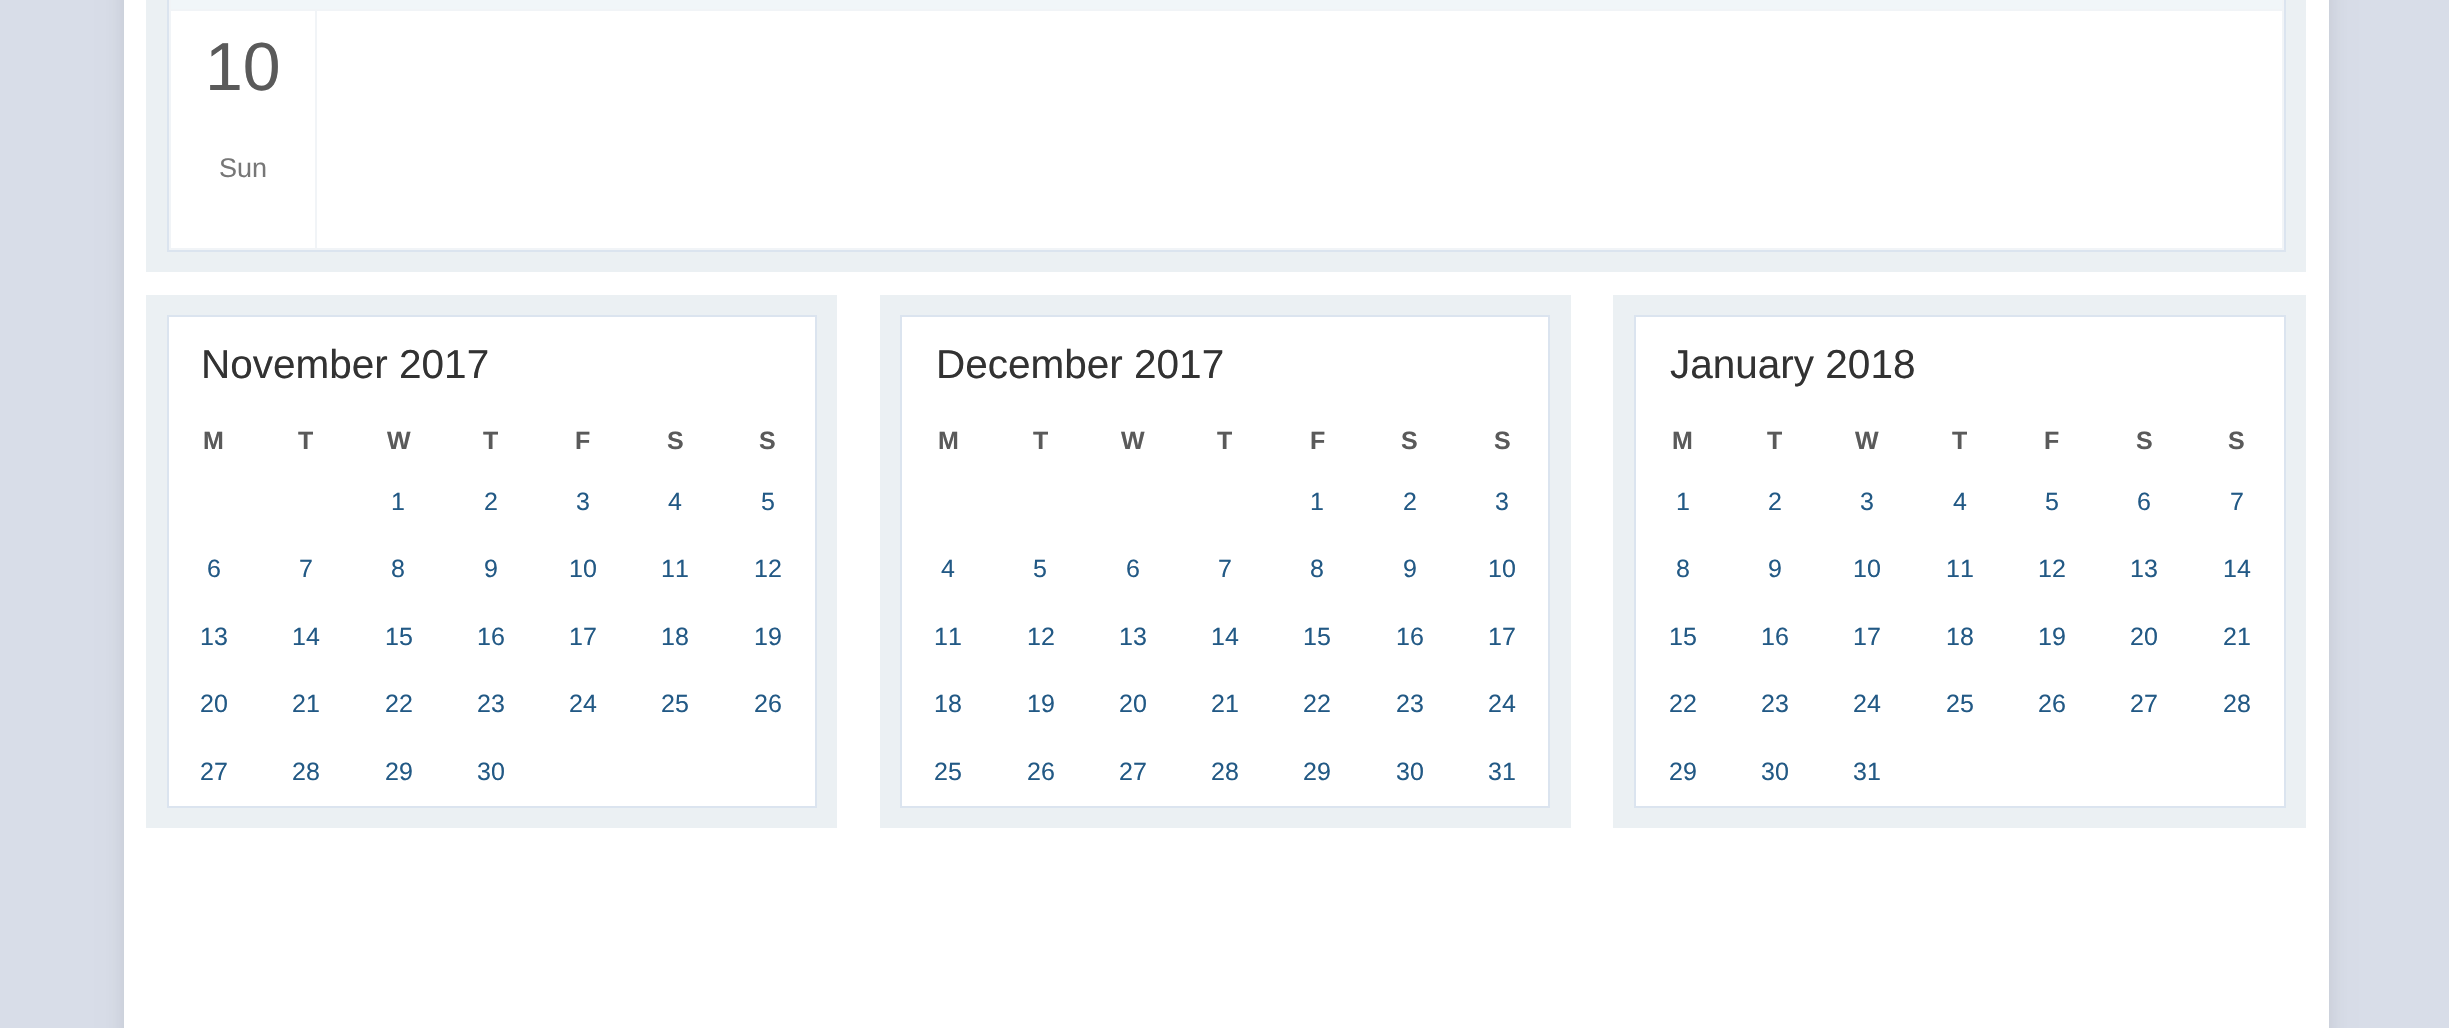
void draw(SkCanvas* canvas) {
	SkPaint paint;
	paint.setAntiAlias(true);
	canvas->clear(0xffd8dde8);
	paint.setColor(0x1a000000);
	paint.setMaskFilter(SkMaskFilter::MakeBlur(kNormal_SkBlurStyle, 10));
	canvas->drawRect(SkRect::MakeXYWH(124, -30, 2205, 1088), paint);
	paint.setMaskFilter(nullptr);
	paint.setColor(0xffffffff);
	canvas->drawRect(SkRect::MakeXYWH(124, 0, 2205, 1028), paint);
	paint.setColor(0xffebf0f3);
	canvas->drawRect(SkRect::MakeXYWH(146, 0, 2160, 272), paint);
	paint.setColor(0xffffffff);
	canvas->drawRect(SkRect::MakeXYWH(171, 11, 2111, 237), paint);
	paint.setStroke(true);
	paint.setStrokeWidth(2);
	paint.setColor(0xffdbe4ef);
	canvas->drawRect(SkRect::MakeXYWH(168, -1, 2117, 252), paint);
	paint.setStroke(false);
	paint.setColor(0xfff1f6f9);
	canvas->drawRect(SkRect::MakeXYWH(171, 0, 2111, 9), paint);
	paint.setColor(0xfff1f4f7);
	canvas->drawRect(SkRect::MakeXYWH(315, 9, 1969, 2), paint);
	canvas->drawRect(SkRect::MakeXYWH(2282, 0, 2, 250), paint);
	canvas->drawRect(SkRect::MakeXYWH(315, 248, 1969, 2), paint);
	canvas->drawRect(SkRect::MakeXYWH(315, 9, 2, 241), paint);
	canvas->drawRect(SkRect::MakeXYWH(169, 9, 148, 2), paint);
	canvas->drawRect(SkRect::MakeXYWH(169, 248, 148, 2), paint);
	canvas->drawRect(SkRect::MakeXYWH(169, 0, 2, 250), paint);
	SkFont f1(fontMgr->matchFamilyStyle("Liberation Sans", SkFontStyle::Normal()), 68);
	f1.setSubpixel(true);
	paint.setColor(0xff5a5a5a);
	canvas->drawString("10", 205, 90, f1, paint);
	SkFont f2(fontMgr->matchFamilyStyle("Liberation Sans", SkFontStyle::Normal()), 27);
	f2.setSubpixel(true);
	paint.setColor(0xff777777);
	canvas->drawString("Sun", 219, 177, f2, paint);
	paint.setColor(0xffebf0f3);
	canvas->drawRect(SkRect::MakeXYWH(146, 295, 691, 533), paint);
	paint.setColor(0xffffffff);
	canvas->drawRect(SkRect::MakeXYWH(168, 316, 648, 491), paint);
	paint.setStroke(true);
	paint.setColor(0xffdbe4ef);
	canvas->drawRect(SkRect::MakeXYWH(168, 316, 648, 491), paint);
	SkFont f3(fontMgr->matchFamilyStyle("Liberation Sans", SkFontStyle::Normal()), 40.5);
	f3.setSubpixel(true);
	paint.setStroke(false);
	paint.setColor(0xff323232);
	canvas->drawString("November 2017", 201, 378, f3, paint);
	SkFont f4(fontMgr->matchFamilyStyle("Liberation Sans", SkFontStyle::Bold()), 25);
	f4.setSubpixel(true);
	paint.setColor(0xff5a5a5a);
	canvas->drawString("M", 203, 449, f4, paint);
	canvas->drawString("T", 298, 449, f4, paint);
	canvas->drawString("W", 387, 449, f4, paint);
	canvas->drawString("T", 483, 449, f4, paint);
	canvas->drawString("F", 575, 449, f4, paint);
	canvas->drawString("S", 667, 449, f4, paint);
	canvas->drawString("S", 759, 449, f4, paint);
	SkFont f5(fontMgr->matchFamilyStyle("Liberation Sans", SkFontStyle::Normal()), 25);
	f5.setSubpixel(true);
	paint.setColor(0xff225985);
	canvas->drawString("1", 391, 510, f5, paint);
	canvas->drawString("2", 484, 510, f5, paint);
	canvas->drawString("3", 576, 510, f5, paint);
	canvas->drawString("4", 668, 510, f5, paint);
	canvas->drawString("5", 761, 510, f5, paint);
	canvas->drawString("6", 207, 577, f5, paint);
	canvas->drawString("7", 299, 577, f5, paint);
	canvas->drawString("8", 391, 577, f5, paint);
	canvas->drawString("9", 484, 577, f5, paint);
	canvas->drawString("10", 569, 577, f5, paint);
	canvas->drawString("11", 661, 577, f5, paint);
	canvas->drawString("12", 754, 577, f5, paint);
	canvas->drawString("13", 200, 645, f5, paint);
	canvas->drawString("14", 292, 645, f5, paint);
	canvas->drawString("15", 385, 645, f5, paint);
	canvas->drawString("16", 477, 645, f5, paint);
	canvas->drawString("17", 569, 645, f5, paint);
	canvas->drawString("18", 661, 645, f5, paint);
	canvas->drawString("19", 754, 645, f5, paint);
	canvas->drawString("20", 200, 712, f5, paint);
	canvas->drawString("21", 292, 712, f5, paint);
	canvas->drawString("22", 385, 712, f5, paint);
	canvas->drawString("23", 477, 712, f5, paint);
	canvas->drawString("24", 569, 712, f5, paint);
	canvas->drawString("25", 661, 712, f5, paint);
	canvas->drawString("26", 754, 712, f5, paint);
	canvas->drawString("27", 200, 780, f5, paint);
	canvas->drawString("28", 292, 780, f5, paint);
	canvas->drawString("29", 385, 780, f5, paint);
	canvas->drawString("30", 477, 780, f5, paint);
	paint.setColor(0xffebf0f3);
	canvas->drawRect(SkRect::MakeXYWH(880, 295, 691, 533), paint);
	paint.setColor(0xffffffff);
	canvas->drawRect(SkRect::MakeXYWH(901, 316, 648, 491), paint);
	paint.setStroke(true);
	paint.setColor(0xffdbe4ef);
	canvas->drawRect(SkRect::MakeXYWH(901, 316, 648, 491), paint);
	paint.setStroke(false);
	paint.setColor(0xff323232);
	canvas->drawString("December 2017", 936, 378, f3, paint);
	paint.setColor(0xff5a5a5a);
	canvas->drawString("M", 938, 449, f4, paint);
	canvas->drawString("T", 1033, 449, f4, paint);
	canvas->drawString("W", 1121, 449, f4, paint);
	canvas->drawString("T", 1217, 449, f4, paint);
	canvas->drawString("F", 1310, 449, f4, paint);
	canvas->drawString("S", 1401, 449, f4, paint);
	canvas->drawString("S", 1494, 449, f4, paint);
	paint.setColor(0xff225985);
	canvas->drawString("1", 1310, 510, f5, paint);
	canvas->drawString("2", 1403, 510, f5, paint);
	canvas->drawString("3", 1495, 510, f5, paint);
	canvas->drawString("4", 941, 577, f5, paint);
	canvas->drawString("5", 1033, 577, f5, paint);
	canvas->drawString("6", 1126, 577, f5, paint);
	canvas->drawString("7", 1218, 577, f5, paint);
	canvas->drawString("8", 1310, 577, f5, paint);
	canvas->drawString("9", 1403, 577, f5, paint);
	canvas->drawString("10", 1488, 577, f5, paint);
	canvas->drawString("11", 934, 645, f5, paint);
	canvas->drawString("12", 1027, 645, f5, paint);
	canvas->drawString("13", 1119, 645, f5, paint);
	canvas->drawString("14", 1211, 645, f5, paint);
	canvas->drawString("15", 1303, 645, f5, paint);
	canvas->drawString("16", 1396, 645, f5, paint);
	canvas->drawString("17", 1488, 645, f5, paint);
	canvas->drawString("18", 934, 712, f5, paint);
	canvas->drawString("19", 1027, 712, f5, paint);
	canvas->drawString("20", 1119, 712, f5, paint);
	canvas->drawString("21", 1211, 712, f5, paint);
	canvas->drawString("22", 1303, 712, f5, paint);
	canvas->drawString("23", 1396, 712, f5, paint);
	canvas->drawString("24", 1488, 712, f5, paint);
	canvas->drawString("25", 934, 780, f5, paint);
	canvas->drawString("26", 1027, 780, f5, paint);
	canvas->drawString("27", 1119, 780, f5, paint);
	canvas->drawString("28", 1211, 780, f5, paint);
	canvas->drawString("29", 1303, 780, f5, paint);
	canvas->drawString("30", 1396, 780, f5, paint);
	canvas->drawString("31", 1488, 780, f5, paint);
	paint.setColor(0xffebf0f3);
	canvas->drawRect(SkRect::MakeXYWH(1613, 295, 693, 533), paint);
	paint.setColor(0xffffffff);
	canvas->drawRect(SkRect::MakeXYWH(1635, 316, 650, 491), paint);
	paint.setStroke(true);
	paint.setColor(0xffdbe4ef);
	canvas->drawRect(SkRect::MakeXYWH(1635, 316, 650, 491), paint);
	paint.setStroke(false);
	paint.setColor(0xff323232);
	canvas->drawString("January 2018", 1670, 378, f3, paint);
	paint.setColor(0xff5a5a5a);
	canvas->drawString("M", 1672, 449, f4, paint);
	canvas->drawString("T", 1767, 449, f4, paint);
	canvas->drawString("W", 1855, 449, f4, paint);
	canvas->drawString("T", 1952, 449, f4, paint);
	canvas->drawString("F", 2044, 449, f4, paint);
	canvas->drawString("S", 2136, 449, f4, paint);
	canvas->drawString("S", 2228, 449, f4, paint);
	paint.setColor(0xff225985);
	canvas->drawString("1", 1676, 510, f5, paint);
	canvas->drawString("2", 1768, 510, f5, paint);
	canvas->drawString("3", 1860, 510, f5, paint);
	canvas->drawString("4", 1953, 510, f5, paint);
	canvas->drawString("5", 2045, 510, f5, paint);
	canvas->drawString("6", 2137, 510, f5, paint);
	canvas->drawString("7", 2230, 510, f5, paint);
	canvas->drawString("8", 1676, 577, f5, paint);
	canvas->drawString("9", 1768, 577, f5, paint);
	canvas->drawString("10", 1853, 577, f5, paint);
	canvas->drawString("11", 1946, 577, f5, paint);
	canvas->drawString("12", 2038, 577, f5, paint);
	canvas->drawString("13", 2130, 577, f5, paint);
	canvas->drawString("14", 2223, 577, f5, paint);
	canvas->drawString("15", 1669, 645, f5, paint);
	canvas->drawString("16", 1761, 645, f5, paint);
	canvas->drawString("17", 1853, 645, f5, paint);
	canvas->drawString("18", 1946, 645, f5, paint);
	canvas->drawString("19", 2038, 645, f5, paint);
	canvas->drawString("20", 2130, 645, f5, paint);
	canvas->drawString("21", 2223, 645, f5, paint);
	canvas->drawString("22", 1669, 712, f5, paint);
	canvas->drawString("23", 1761, 712, f5, paint);
	canvas->drawString("24", 1853, 712, f5, paint);
	canvas->drawString("25", 1946, 712, f5, paint);
	canvas->drawString("26", 2038, 712, f5, paint);
	canvas->drawString("27", 2130, 712, f5, paint);
	canvas->drawString("28", 2223, 712, f5, paint);
	canvas->drawString("29", 1669, 780, f5, paint);
	canvas->drawString("30", 1761, 780, f5, paint);
	canvas->drawString("31", 1853, 780, f5, paint);
}
